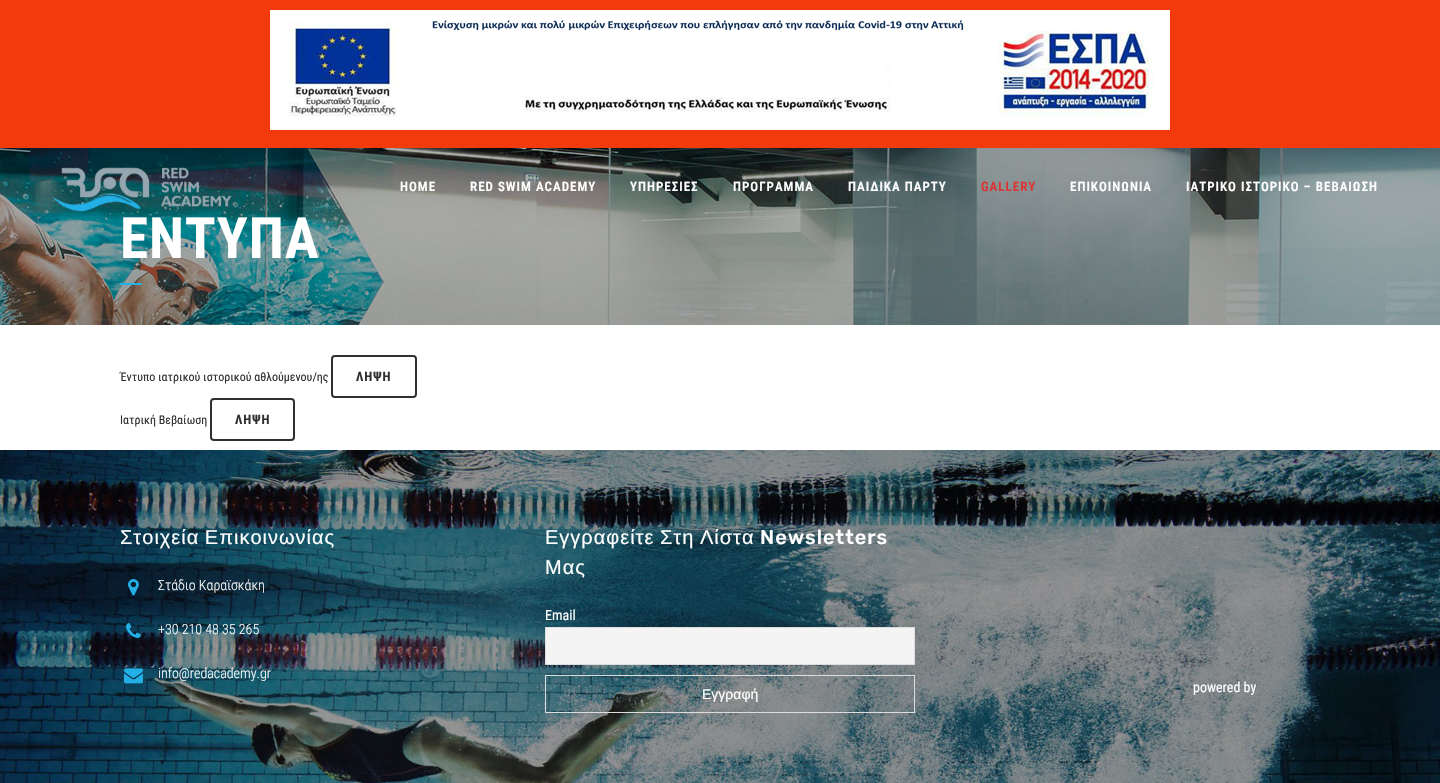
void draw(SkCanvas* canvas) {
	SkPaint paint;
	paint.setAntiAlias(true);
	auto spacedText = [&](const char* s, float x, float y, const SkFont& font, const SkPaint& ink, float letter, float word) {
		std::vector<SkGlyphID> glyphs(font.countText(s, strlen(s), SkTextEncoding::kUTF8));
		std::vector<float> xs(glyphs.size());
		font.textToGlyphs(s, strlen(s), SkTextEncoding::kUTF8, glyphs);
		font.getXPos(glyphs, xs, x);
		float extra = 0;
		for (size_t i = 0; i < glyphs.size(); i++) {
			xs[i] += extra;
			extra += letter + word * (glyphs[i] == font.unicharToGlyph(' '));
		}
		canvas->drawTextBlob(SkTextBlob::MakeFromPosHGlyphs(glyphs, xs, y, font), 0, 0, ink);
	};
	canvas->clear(0xffffffff);
	paint.setColor(0xfff23a0d);
	canvas->drawRect(SkRect::MakeXYWH(0, 0, 1440, 148), paint);
	canvas->drawImageRect(SkImages::DeferredFromEncodedData(SkData::MakeFromFileName("img1.png")), SkRect::MakeXYWH(270, 10, 900, 120), SkSamplingOptions());
	canvas->drawImageRect(SkImages::DeferredFromEncodedData(SkData::MakeFromFileName("img3.png")), SkRect::MakeXYWH(0, 148, 1440, 177), SkSamplingOptions());
	canvas->drawImageRect(SkImages::DeferredFromEncodedData(SkData::MakeFromFileName("img2.png")), SkRect::MakeXYWH(52, 167, 180, 45), SkSamplingOptions());
	SkFont f1(fontMgr->matchFamilyStyle("Roboto Condensed", SkFontStyle(600, SkFontStyle::kNormal_Width, SkFontStyle::kUpright_Slant)), 13);
	f1.setSubpixel(true);
	paint.setColor(0xffffffff);
	spacedText("HOME", 400, 191, f1, paint, 1, 0);
	spacedText("RED SWIM ACADEMY", 470, 191, f1, paint, 1, 0);
	spacedText("ΥΠΗΡΕΣΙΕΣ", 630, 191, f1, paint, 1, 0);
	spacedText("ΠΡΟΓΡΑΜΜΑ", 733, 191, f1, paint, 1, 0);
	spacedText("ΠΑΙΔΙΚΑ ΠΑΡΤΥ", 848, 191, f1, paint, 1, 0);
	paint.setColor(0xffdd3333);
	spacedText("GALLERY", 981, 191, f1, paint, 1, 0);
	paint.setColor(0xffffffff);
	spacedText("ΕΠΙΚΟΙΝΩΝΙΑ", 1070, 191, f1, paint, 1, 0);
	spacedText("ΙΑΤΡΙΚΟ ΙΣΤΟΡΙΚΟ – ΒΕΒΑΙΩΣΗ", 1186, 191, f1, paint, 1, 0);
	SkFont f2(fontMgr->matchFamilyStyle("Roboto Condensed", SkFontStyle::Bold()), 57);
	f2.setSubpixel(true);
	spacedText("ΕΝΤΥΠΑ", 120, 258, f2, paint, 1, 0);
	paint.setColor(0xff23b0e6);
	canvas->drawRect(SkRect::MakeXYWH(120, 283, 22, 2), paint);
	SkFont f3(fontMgr->matchFamilyStyle("Roboto Condensed", SkFontStyle::Normal()), 12);
	f3.setSubpixel(true);
	paint.setColor(0xff303030);
	canvas->drawString("Έντυπο ιατρικού ιστορικού αθλούμενου/ης", 120, 381, f3, paint);
	paint.setStroke(true);
	paint.setStrokeWidth(2);
	canvas->drawRoundRect(SkRect::MakeXYWH(332, 356, 84, 41), 3, 3, paint);
	SkFont f4(fontMgr->matchFamilyStyle("Roboto Condensed", SkFontStyle::Bold()), 13);
	f4.setSubpixel(true);
	paint.setStroke(false);
	spacedText("ΛΗΨΗ", 356, 381, f4, paint, 1, 0);
	canvas->drawString("Ιατρική Βεβαίωση", 120, 424, f3, paint);
	paint.setStroke(true);
	canvas->drawRoundRect(SkRect::MakeXYWH(211, 399, 83, 41), 3, 3, paint);
	paint.setStroke(false);
	spacedText("ΛΗΨΗ", 235, 424, f4, paint, 1, 0);
	canvas->drawImageRect(SkImages::DeferredFromEncodedData(SkData::MakeFromFileName("img4.png")), SkRect::MakeXYWH(0, 450, 1440, 333), SkSamplingOptions());
	SkFont f5(fontMgr->matchFamilyStyle("Liberation Sans", SkFontStyle::Normal()), 20);
	f5.setSubpixel(true);
	paint.setColor(0xffffffff);
	spacedText("Στοιχεία Επικοινωνίας", 120, 544, f5, paint, 1, -1);
	canvas->drawImageRect(SkImages::DeferredFromEncodedData(SkData::MakeFromFileName("img5.png")), SkRect::MakeXYWH(128, 579, 11, 17), SkSamplingOptions());
	SkFont f6(fontMgr->matchFamilyStyle("Roboto Condensed", SkFontStyle(300, SkFontStyle::kNormal_Width, SkFontStyle::kUpright_Slant)), 14);
	f6.setSubpixel(true);
	canvas->drawString("Στάδιο Καραϊσκάκη", 158, 590, f6, paint);
	canvas->drawImageRect(SkImages::DeferredFromEncodedData(SkData::MakeFromFileName("img6.png")), SkRect::MakeXYWH(126, 623, 15, 15), SkSamplingOptions());
	canvas->drawString("+30 210 48 35 265", 158, 634, f6, paint);
	canvas->drawImageRect(SkImages::DeferredFromEncodedData(SkData::MakeFromFileName("img7.png")), SkRect::MakeXYWH(124, 668, 19, 16), SkSamplingOptions());
	canvas->drawString("info@redacademy.gr", 158, 678, f6, paint);
	spacedText("Εγγραφείτε Στη Λίστα", 545, 544, f5, paint, 1, -1);
	SkFont f7(fontMgr->matchFamilyStyle("Rubik", SkFontStyle(500, SkFontStyle::kNormal_Width, SkFontStyle::kUpright_Slant)), 20);
	f7.setSubpixel(true);
	spacedText("Newsletters", 760, 544, f7, paint, 1, 0);
	spacedText("Μας", 545, 574, f5, paint, 1, 0);
	SkFont f8(fontMgr->matchFamilyStyle("Roboto Condensed", SkFontStyle::Normal()), 14);
	f8.setSubpixel(true);
	canvas->drawString("Email", 545, 620, f8, paint);
	paint.setColor(0xfff4f4f4);
	canvas->drawRect(SkRect::MakeXYWH(545.5, 627.5, 369, 37), paint);
	paint.setStroke(true);
	paint.setStrokeWidth(1);
	paint.setColor(0xffdddddd);
	canvas->drawRect(SkRect::MakeXYWH(545.5, 627.5, 369, 37), paint);
	canvas->drawRect(SkRect::MakeXYWH(545.5, 675.5, 369, 37), paint);
	SkFont f9(fontMgr->matchFamilyStyle("Liberation Sans", SkFontStyle::Normal()), 14);
	f9.setSubpixel(true);
	paint.setStroke(false);
	paint.setColor(0xffffffff);
	canvas->drawString("Εγγραφή", 702, 699, f9, paint);
	canvas->drawString("powered by", 1193, 692, f8, paint);
}
